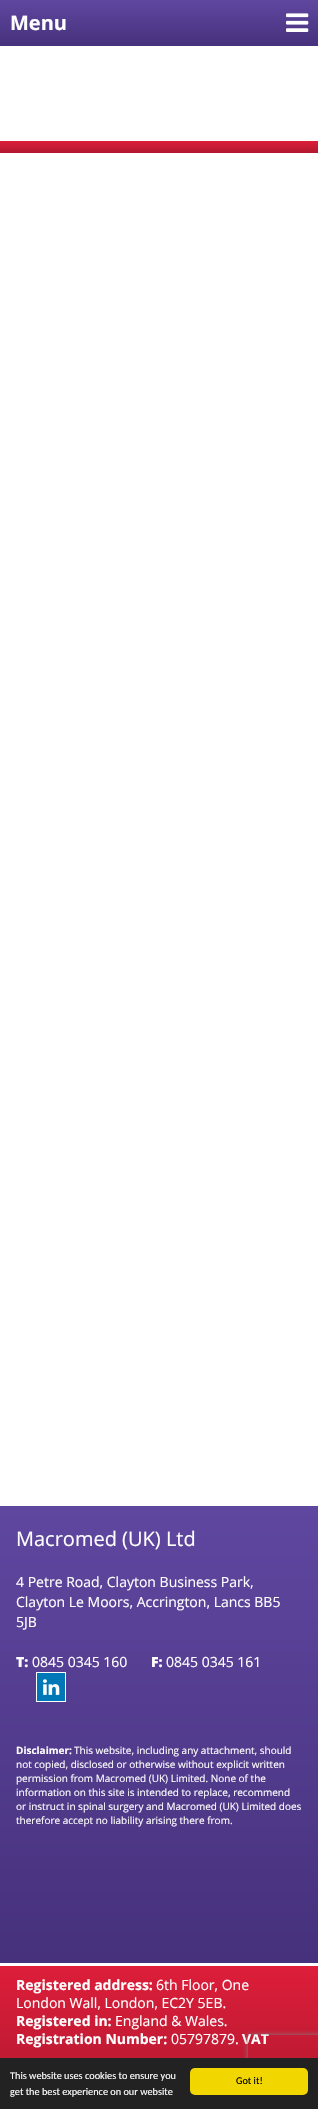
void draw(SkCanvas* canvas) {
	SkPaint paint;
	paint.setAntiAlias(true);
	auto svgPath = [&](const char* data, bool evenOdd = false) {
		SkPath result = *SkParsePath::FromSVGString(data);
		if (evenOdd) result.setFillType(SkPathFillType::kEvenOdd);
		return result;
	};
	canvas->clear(0xffffffff);
	{
		const SkColor colors[] = {0xff5f47a0, 0xff46317c};
		const float stops[] = {0, 1};
		const SkPoint ends[] = {{159, 0}, {159, 46}};
		paint.setShader(SkGradientShader::MakeLinear(ends, colors, stops, 2, SkTileMode::kClamp));
		paint.setAlpha(255);
	}
	canvas->drawRect(SkRect::MakeXYWH(0, 0, 318, 46), paint);
	SkFont f1(fontMgr->matchFamilyStyle("Open Sans", SkFontStyle::Bold()), 20);
	f1.setSubpixel(true);
	paint.setShader(nullptr);
	paint.setColor(0xffffffff);
	canvas->drawString("Menu", 10, 30, f1, paint);
	canvas->drawImageRect(SkImages::DeferredFromEncodedData(SkData::MakeFromFileName("img1.png")), SkRect::MakeXYWH(286, 13, 23, 19), SkSamplingOptions());
	{
		const SkColor colors[] = {0xffdd1e3a, 0xffb1182f};
		const float stops[] = {0, 1};
		const SkPoint ends[] = {{159, 141}, {159, 153}};
		paint.setShader(SkGradientShader::MakeLinear(ends, colors, stops, 2, SkTileMode::kClamp));
		paint.setAlpha(255);
	}
	canvas->drawRect(SkRect::MakeXYWH(0, 141, 318, 12), paint);
	{
		const SkColor colors[] = {0xff5f47a0, 0xff46317c};
		const float stops[] = {0, 1};
		const SkPoint ends[] = {{159, 1506}, {159, 1963}};
		paint.setShader(SkGradientShader::MakeLinear(ends, colors, stops, 2, SkTileMode::kClamp));
		paint.setAlpha(255);
	}
	canvas->drawRect(SkRect::MakeXYWH(0, 1506, 318, 457), paint);
	SkFont f2(fontMgr->matchFamilyStyle("Open Sans", SkFontStyle::Normal()), 20);
	f2.setSubpixel(true);
	paint.setShader(nullptr);
	paint.setColor(0xffffffff);
	canvas->drawString("Macromed (UK) Ltd", 16, 1546, f2, paint);
	SkFont f3(fontMgr->matchFamilyStyle("Open Sans", SkFontStyle::Normal()), 14);
	f3.setSubpixel(true);
	canvas->drawString("4 Petre Road, Clayton Business Park,", 16, 1587, f3, paint);
	canvas->drawString("Clayton Le Moors, Accrington, Lancs BB5", 16, 1607, f3, paint);
	canvas->drawString("5JB", 16, 1627, f3, paint);
	SkFont f4(fontMgr->matchFamilyStyle("Open Sans", SkFontStyle(800, SkFontStyle::kNormal_Width, SkFontStyle::kUpright_Slant)), 14);
	f4.setSubpixel(true);
	canvas->drawString("T:", 16, 1667, f4, paint);
	canvas->drawString("0845 0345 160", 32, 1667, f3, paint);
	canvas->drawString("F:", 151, 1667, f4, paint);
	canvas->drawString("0845 0345 161", 166, 1667, f3, paint);
	paint.setColor(0xff0077b7);
	canvas->drawRect(SkRect::MakeXYWH(36.5, 1672.5, 29, 29), paint);
	paint.setStroke(true);
	paint.setStrokeWidth(1);
	paint.setColor(0xffffffff);
	canvas->drawRect(SkRect::MakeXYWH(36.5, 1672.5, 29, 29), paint);
	canvas->drawImageRect(SkImages::DeferredFromEncodedData(SkData::MakeFromFileName("img2.png")), SkRect::MakeXYWH(43, 1679, 17, 16), SkSamplingOptions());
	SkFont f5(fontMgr->matchFamilyStyle("Open Sans", SkFontStyle::Bold()), 10);
	f5.setSubpixel(true);
	paint.setStroke(false);
	canvas->drawString("Disclaimer:", 16, 1754, f5, paint);
	SkFont f6(fontMgr->matchFamilyStyle("Open Sans", SkFontStyle::Normal()), 10);
	f6.setSubpixel(true);
	canvas->drawString("This website, including any attachment, should", 74, 1754, f6, paint);
	canvas->drawString("not copied, disclosed or otherwise without explicit written", 16, 1768, f6, paint);
	canvas->drawString("permission from Macromed (UK) Limited. None of the", 16, 1782, f6, paint);
	canvas->drawString("information on this site is intended to replace, recommend", 16, 1796, f6, paint);
	canvas->drawString("or instruct in spinal surgery and Macromed (UK) Limited does", 16, 1810, f6, paint);
	canvas->drawString("therefore accept no liability arising there from.", 16, 1824, f6, paint);
	{
		const SkColor colors[] = {0xffdd1e3a, 0xffb1182f};
		const float stops[] = {0, 1};
		const SkPoint ends[] = {{159, 1966}, {159, 2109}};
		paint.setShader(SkGradientShader::MakeLinear(ends, colors, stops, 2, SkTileMode::kClamp));
		paint.setAlpha(255);
	}
	canvas->drawRect(SkRect::MakeXYWH(0, 1966, 318, 92), paint);
	SkFont f7(fontMgr->matchFamilyStyle("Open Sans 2", SkFontStyle::Bold()), 14);
	f7.setSubpixel(true);
	paint.setShader(nullptr);
	paint.setColor(0xffffffff);
	canvas->drawString("Registered address:", 16, 1990, f7, paint);
	SkFont f8(fontMgr->matchFamilyStyle("Open Sans 2", SkFontStyle::Normal()), 14);
	f8.setSubpixel(true);
	canvas->drawString("6th Floor, One", 156, 1990, f8, paint);
	canvas->drawString("London Wall, London, EC2Y 5EB.", 16, 2008, f8, paint);
	canvas->drawString("Registered in:", 16, 2026, f7, paint);
	canvas->drawString("England & Wales.", 115, 2026, f8, paint);
	canvas->drawString("Registration Number:", 16, 2044, f7, paint);
	canvas->drawString("05797879.", 171, 2044, f8, paint);
	canvas->drawString("VAT", 242, 2044, f7, paint);
	canvas->save();
	canvas->clipPath(svgPath("M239 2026H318V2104H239ZM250 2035H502C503 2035 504 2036 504 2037V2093C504 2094 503 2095 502 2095H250C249 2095 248 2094 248 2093V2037C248 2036 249 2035 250 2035Z", true), true);
	paint.setColor(0xff808080);
	paint.setMaskFilter(SkMaskFilter::MakeBlur(kNormal_SkBlurStyle, 2.5));
	canvas->drawRoundRect(SkRect::MakeXYWH(248, 2035, 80, 60), 2, 2, paint);
	paint.setMaskFilter(nullptr);
	canvas->restore();
	paint.setColor(0xff222222);
	canvas->drawRect(SkRect::MakeXYWH(0, 2058, 318, 51), paint);
	SkFont f9(fontMgr->matchFamilyStyle("Carlito", SkFontStyle::Normal()), 10.25);
	f9.setSubpixel(true);
	paint.setColor(0xffffffff);
	canvas->drawString("This website uses cookies to ensure you", 10, 2079, f9, paint);
	canvas->drawString("get the best experience on our website", 10, 2095, f9, paint);
	paint.setColor(0xfff1d600);
	canvas->drawRoundRect(SkRect::MakeXYWH(190, 2068, 118, 27), 5, 5, paint);
	paint.setColor(0xff000000);
	canvas->drawString("Got it!", 236, 2084, f9, paint);
}
